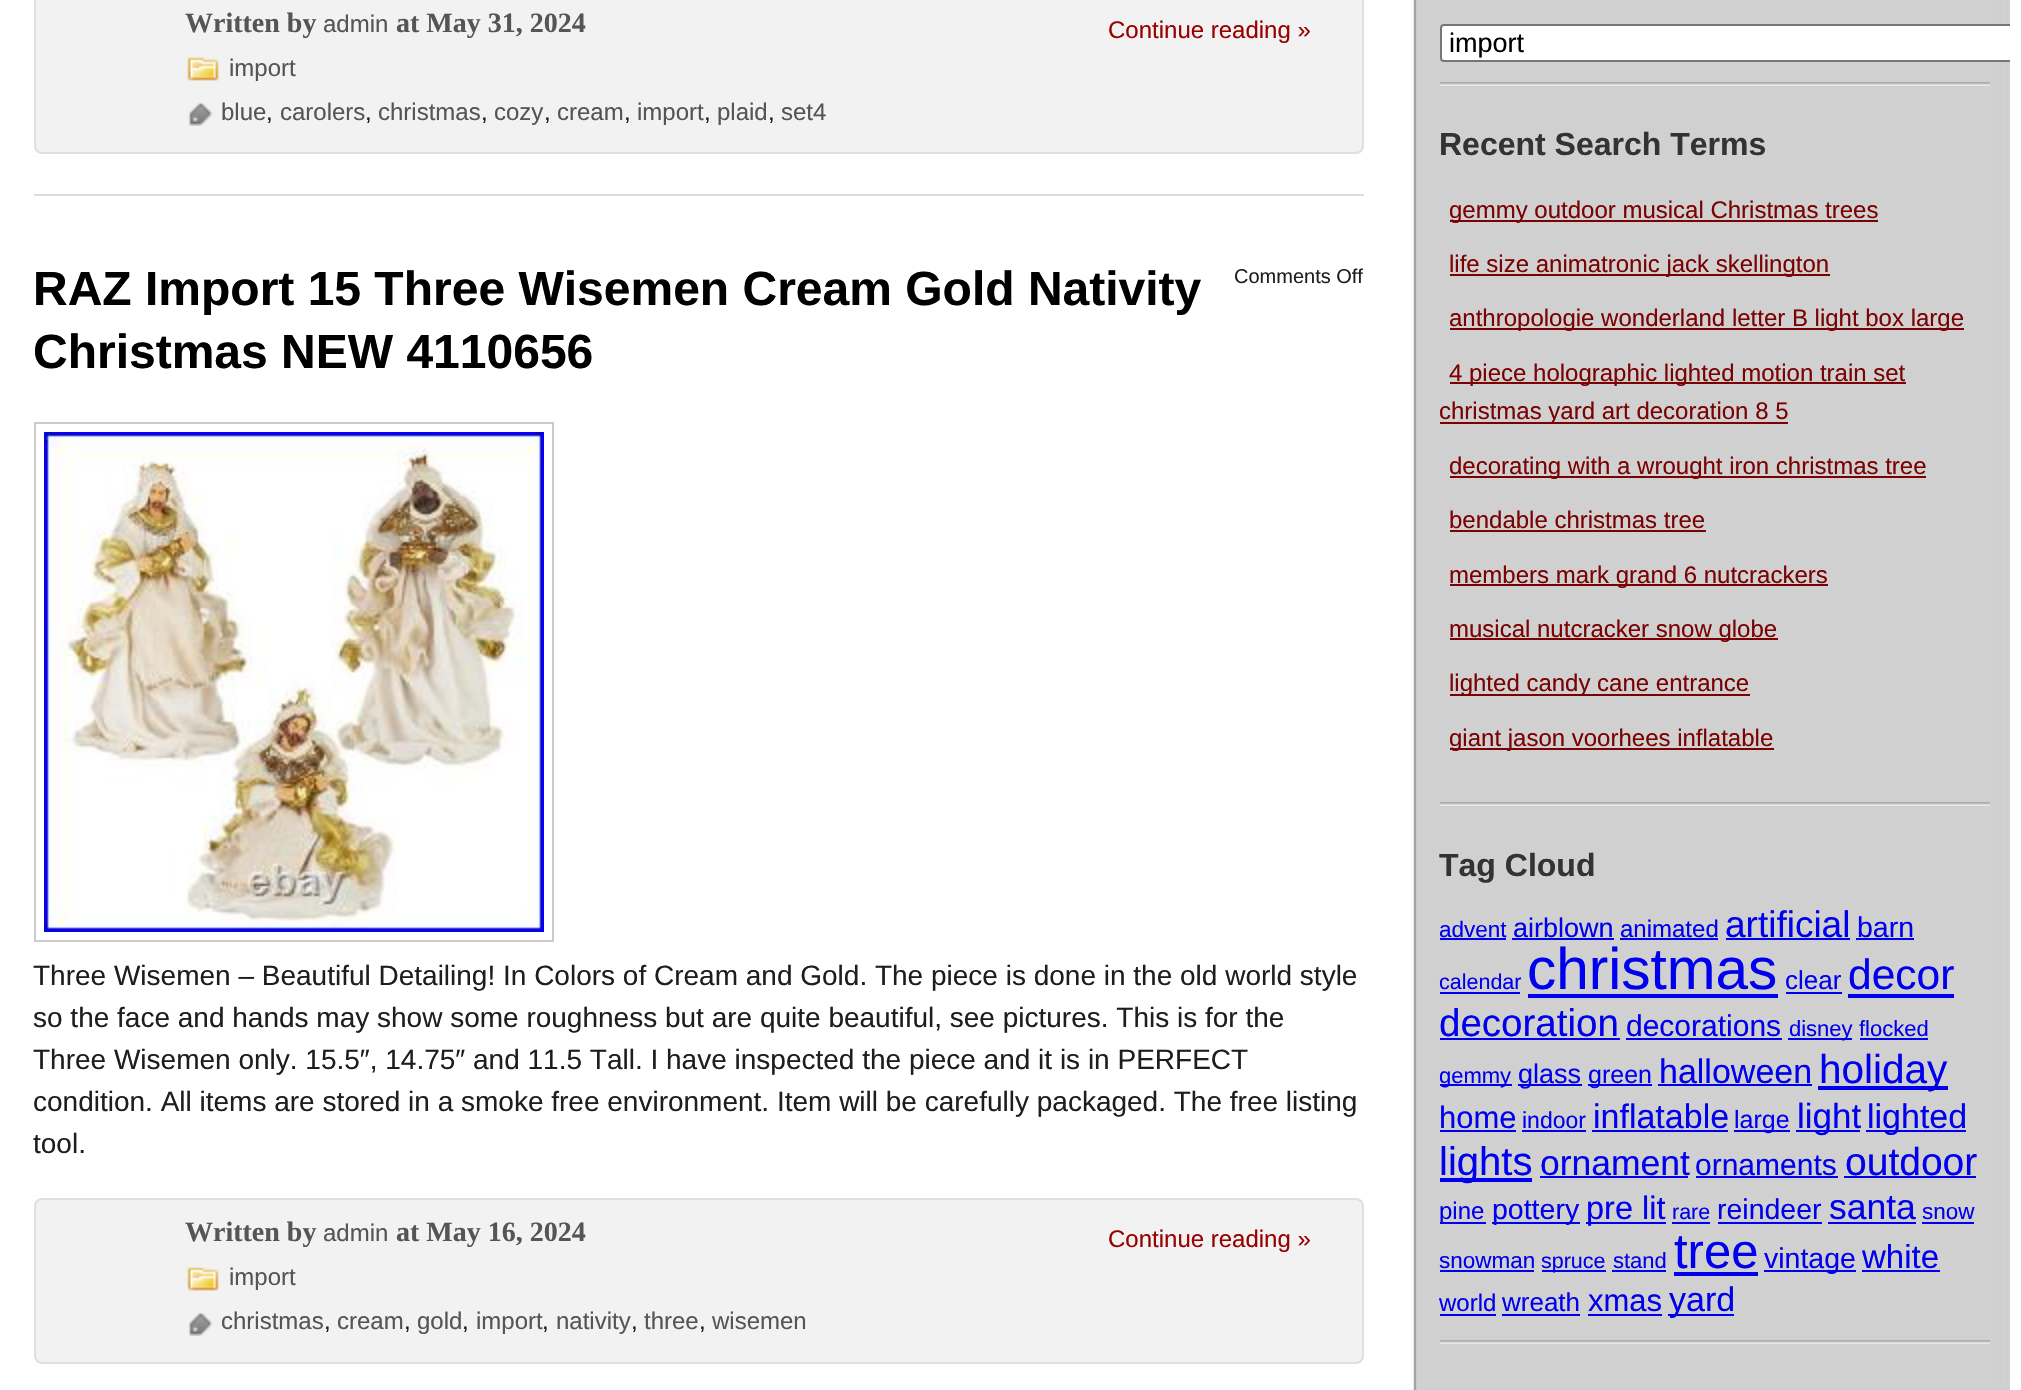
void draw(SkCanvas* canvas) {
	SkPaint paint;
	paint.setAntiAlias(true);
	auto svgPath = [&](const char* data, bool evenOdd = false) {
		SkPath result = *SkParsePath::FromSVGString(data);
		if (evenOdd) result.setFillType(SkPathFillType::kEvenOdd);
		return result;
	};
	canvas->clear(0xffffffff);
	canvas->drawImageRect(SkImages::DeferredFromEncodedData(SkData::MakeFromFileName("img1.png")), SkRect::MakeXYWH(1413, 0, 597, 1390), SkSamplingOptions());
	paint.setColor(0xffa4a4a4);
	canvas->drawRect(SkRect::MakeXYWH(1414, 0, 2, 1390), paint);
	paint.setColor(0xffdddddd);
	canvas->drawRect(SkRect::MakeXYWH(34, 194, 1330, 2), paint);
	paint.setColor(0xfff2f2f2);
	canvas->drawRoundRect(SkRect::MakeXYWH(34, -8, 1330, 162), 8, 8, paint);
	paint.setStroke(true);
	paint.setStrokeWidth(2);
	paint.setColor(0x14000000);
	canvas->drawRoundRect(SkRect::MakeXYWH(35, -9, 1328, 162), 7, 7, paint);
	SkFont f1(fontMgr->matchFamilyStyle("Liberation Serif", SkFontStyle::Bold()), 28);
	f1.setSubpixel(true);
	paint.setStroke(false);
	paint.setColor(0xff555555);
	canvas->drawString("Written by", 185, 32, f1, paint);
	SkFont f2(fontMgr->matchFamilyStyle("Liberation Sans", SkFontStyle::Normal()), 24);
	f2.setSubpixel(true);
	canvas->drawString("admin", 323, 32, f2, paint);
	canvas->drawString("at May 31, 2024", 396, 32, f1, paint);
	canvas->drawImageRect(SkImages::DeferredFromEncodedData(SkData::MakeFromFileName("img2.png")), SkRect::MakeXYWH(187, 57, 32, 24), SkSamplingOptions());
	canvas->drawString("import", 229, 76, f2, paint);
	paint.setColor(0xff990000);
	canvas->drawString("Continue reading »", 1108, 38, f2, paint);
	canvas->drawImageRect(SkImages::DeferredFromEncodedData(SkData::MakeFromFileName("img3.png")), SkRect::MakeXYWH(188, 102, 25, 24), SkSamplingOptions());
	paint.setColor(0xff555555);
	canvas->drawString("blue", 221, 120, f2, paint);
	paint.setColor(0xff1e1e1e);
	canvas->drawString(",", 266, 120, f2, paint);
	paint.setColor(0xff555555);
	canvas->drawString("carolers", 280, 120, f2, paint);
	paint.setColor(0xff1e1e1e);
	canvas->drawString(",", 365, 120, f2, paint);
	paint.setColor(0xff555555);
	canvas->drawString("christmas", 378, 120, f2, paint);
	paint.setColor(0xff1e1e1e);
	canvas->drawString(",", 481, 120, f2, paint);
	paint.setColor(0xff555555);
	canvas->drawString("cozy", 494, 120, f2, paint);
	paint.setColor(0xff1e1e1e);
	canvas->drawString(",", 544, 120, f2, paint);
	paint.setColor(0xff555555);
	canvas->drawString("cream", 557, 120, f2, paint);
	paint.setColor(0xff1e1e1e);
	canvas->drawString(",", 624, 120, f2, paint);
	paint.setColor(0xff555555);
	canvas->drawString("import", 637, 120, f2, paint);
	paint.setColor(0xff1e1e1e);
	canvas->drawString(",", 704, 120, f2, paint);
	paint.setColor(0xff555555);
	canvas->drawString("plaid", 717, 120, f2, paint);
	paint.setColor(0xff1e1e1e);
	canvas->drawString(",", 768, 120, f2, paint);
	paint.setColor(0xff555555);
	canvas->drawString("set4", 781, 120, f2, paint);
	SkFont f3(fontMgr->matchFamilyStyle("Liberation Sans", SkFontStyle::Bold()), 48);
	f3.setSubpixel(true);
	paint.setColor(0xff000000);
	canvas->drawString("RAZ Import 15 Three Wisemen Cream Gold Nativity", 33, 305, f3, paint);
	canvas->drawString("Christmas NEW 4110656", 33, 368, f3, paint);
	SkFont f4(fontMgr->matchFamilyStyle("Liberation Sans", SkFontStyle::Normal()), 20);
	f4.setSubpixel(true);
	paint.setColor(0xff1e1e1e);
	canvas->drawString("Comments Off", 1234, 283, f4, paint);
	paint.setStroke(true);
	paint.setColor(0xffcccccc);
	canvas->drawRect(SkRect::MakeXYWH(35, 423, 518, 518), paint);
	canvas->drawImageRect(SkImages::DeferredFromEncodedData(SkData::MakeFromFileName("img4.png")), SkRect::MakeXYWH(44, 432, 500, 500), SkSamplingOptions());
	SkFont f5(fontMgr->matchFamilyStyle("Liberation Sans", SkFontStyle::Normal()), 28);
	f5.setSubpixel(true);
	paint.setStroke(false);
	paint.setColor(0xff1e1e1e);
	canvas->drawString("Three Wisemen – Beautiful Detailing! In Colors of Cream and Gold. The piece is done in the old world style", 33, 985, f5, paint);
	canvas->drawString("so the face and hands may show some roughness but are quite beautiful, see pictures. This is for the", 33, 1027, f5, paint);
	canvas->drawString("Three Wisemen only. 15.5″, 14.75″ and 11.5 Tall. I have inspected the piece and it is in PERFECT", 33, 1069, f5, paint);
	canvas->drawString("condition. All items are stored in a smoke free environment. Item will be carefully packaged. The free listing", 33, 1111, f5, paint);
	canvas->drawString("tool.", 33, 1153, f5, paint);
	paint.setColor(0xfff2f2f2);
	canvas->drawRoundRect(SkRect::MakeXYWH(34, 1198, 1330, 166), 8, 8, paint);
	paint.setStroke(true);
	paint.setColor(0x14000000);
	canvas->drawRoundRect(SkRect::MakeXYWH(35, 1199, 1328, 164), 7, 7, paint);
	paint.setStroke(false);
	paint.setColor(0xff555555);
	canvas->drawString("Written by", 185, 1241, f1, paint);
	canvas->drawString("admin", 323, 1241, f2, paint);
	canvas->drawString("at May 16, 2024", 396, 1241, f1, paint);
	canvas->drawImageRect(SkImages::DeferredFromEncodedData(SkData::MakeFromFileName("img2.png")), SkRect::MakeXYWH(187, 1267, 32, 24), SkSamplingOptions());
	canvas->drawString("import", 229, 1285, f2, paint);
	paint.setColor(0xff990000);
	canvas->drawString("Continue reading »", 1108, 1247, f2, paint);
	canvas->drawImageRect(SkImages::DeferredFromEncodedData(SkData::MakeFromFileName("img3.png")), SkRect::MakeXYWH(188, 1312, 25, 24), SkSamplingOptions());
	paint.setColor(0xff555555);
	canvas->drawString("christmas", 221, 1329, f2, paint);
	paint.setColor(0xff1e1e1e);
	canvas->drawString(",", 324, 1329, f2, paint);
	paint.setColor(0xff555555);
	canvas->drawString("cream", 337, 1329, f2, paint);
	paint.setColor(0xff1e1e1e);
	canvas->drawString(",", 404, 1329, f2, paint);
	paint.setColor(0xff555555);
	canvas->drawString("gold", 417, 1329, f2, paint);
	paint.setColor(0xff1e1e1e);
	canvas->drawString(",", 462, 1329, f2, paint);
	paint.setColor(0xff555555);
	canvas->drawString("import", 476, 1329, f2, paint);
	paint.setColor(0xff1e1e1e);
	canvas->drawString(",", 542, 1329, f2, paint);
	paint.setColor(0xff555555);
	canvas->drawString("nativity", 556, 1329, f2, paint);
	paint.setColor(0xff1e1e1e);
	canvas->drawString(",", 631, 1329, f2, paint);
	paint.setColor(0xff555555);
	canvas->drawString("three", 644, 1329, f2, paint);
	paint.setColor(0xff1e1e1e);
	canvas->drawString(",", 699, 1329, f2, paint);
	paint.setColor(0xff555555);
	canvas->drawString("wisemen", 712, 1329, f2, paint);
	canvas->drawImageRect(SkImages::DeferredFromEncodedData(SkData::MakeFromFileName("img5.png")), SkRect::MakeXYWH(1440, 82, 550, 4), SkSamplingOptions());
	paint.setColor(0xffffffff);
	canvas->drawPath(svgPath("M1444 24H2010V62H1444C1442 62 1440 60 1440 58V28C1440 26 1442 24 1444 24Z"), paint);
	canvas->save();
	canvas->clipRect(SkRect::MakeXYWH(14, 0, 1996, 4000));
	paint.setStroke(true);
	paint.setColor(0xff767676);
	canvas->drawRoundRect(SkRect::MakeXYWH(1441, 25, 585, 36), 3, 3, paint);
	canvas->restore();
	SkFont f6(fontMgr->matchFamilyStyle("Liberation Sans", SkFontStyle::Normal()), 27);
	f6.setSubpixel(true);
	paint.setStroke(false);
	paint.setColor(0xff000000);
	canvas->drawString("import", 1449, 52, f6, paint);
	canvas->drawImageRect(SkImages::DeferredFromEncodedData(SkData::MakeFromFileName("img5.png")), SkRect::MakeXYWH(1440, 802, 550, 4), SkSamplingOptions());
	SkFont f7(fontMgr->matchFamilyStyle("Liberation Sans", SkFontStyle::Bold()), 32);
	f7.setSubpixel(true);
	paint.setColor(0xff333333);
	canvas->drawString("Recent Search Terms", 1439, 155, f7, paint);
	paint.setColor(0xff7a0202);
	canvas->drawRect(SkRect::MakeXYWH(1450, 220, 428, 2), paint);
	canvas->drawString("gemmy outdoor musical Christmas trees", 1449, 218, f2, paint);
	canvas->drawRect(SkRect::MakeXYWH(1450, 274, 380, 2), paint);
	canvas->drawString("life size animatronic jack skellington", 1449, 272, f2, paint);
	canvas->drawRect(SkRect::MakeXYWH(1450, 328, 514, 2), paint);
	canvas->drawString("anthropologie wonderland letter B light box large", 1449, 326, f2, paint);
	canvas->drawRect(SkRect::MakeXYWH(1450, 382, 456, 2), paint);
	canvas->drawString("4 piece holographic lighted motion train set", 1449, 381, f2, paint);
	canvas->drawRect(SkRect::MakeXYWH(1440, 422, 348, 2), paint);
	canvas->drawString("christmas yard art decoration 8 5", 1439, 419, f2, paint);
	canvas->drawRect(SkRect::MakeXYWH(1450, 476, 476, 2), paint);
	canvas->drawString("decorating with a wrought iron christmas tree", 1449, 474, f2, paint);
	canvas->drawString("bendable christmas tree", 1449, 528, f2, paint);
	canvas->drawRect(SkRect::MakeXYWH(1450, 530, 256, 2), paint);
	canvas->drawRect(SkRect::MakeXYWH(1450, 584, 378, 2), paint);
	canvas->drawString("members mark grand 6 nutcrackers", 1449, 583, f2, paint);
	canvas->drawRect(SkRect::MakeXYWH(1450, 638, 328, 2), paint);
	canvas->drawString("musical nutcracker snow globe", 1449, 637, f2, paint);
	canvas->drawRect(SkRect::MakeXYWH(1450, 694, 300, 2), paint);
	canvas->drawString("lighted candy cane entrance", 1449, 691, f2, paint);
	canvas->drawRect(SkRect::MakeXYWH(1450, 748, 324, 2), paint);
	canvas->drawString("giant jason voorhees inflatable", 1449, 746, f2, paint);
	canvas->drawImageRect(SkImages::DeferredFromEncodedData(SkData::MakeFromFileName("img5.png")), SkRect::MakeXYWH(1440, 1340, 550, 4), SkSamplingOptions());
	paint.setColor(0xff333333);
	canvas->drawString("Tag Cloud", 1439, 876, f7, paint);
	SkFont f8(fontMgr->matchFamilyStyle("Liberation Sans", SkFontStyle::Normal()), 22.5);
	f8.setSubpixel(true);
	paint.setColor(0xff0000ee);
	canvas->drawString("advent", 1439, 937, f8, paint);
	canvas->drawRect(SkRect::MakeXYWH(1440, 938, 66, 2), paint);
	canvas->drawString("airblown", 1513, 937, f6, paint);
	canvas->drawRect(SkRect::MakeXYWH(1512, 938, 102, 2), paint);
	canvas->drawString("animated", 1620, 937, f2, paint);
	canvas->drawRect(SkRect::MakeXYWH(1620, 938, 98, 2), paint);
	SkFont f9(fontMgr->matchFamilyStyle("Liberation Sans", SkFontStyle::Normal()), 37);
	f9.setSubpixel(true);
	canvas->drawString("artificial", 1725, 937, f9, paint);
	canvas->drawRect(SkRect::MakeXYWH(1726, 938, 124, 2), paint);
	SkFont f10(fontMgr->matchFamilyStyle("Liberation Sans", SkFontStyle::Normal()), 28.5);
	f10.setSubpixel(true);
	canvas->drawString("barn", 1857, 937, f10, paint);
	canvas->drawRect(SkRect::MakeXYWH(1856, 938, 58, 2), paint);
	SkFont f11(fontMgr->matchFamilyStyle("Liberation Sans", SkFontStyle::Normal()), 21.5);
	f11.setSubpixel(true);
	canvas->drawString("calendar", 1439, 989, f11, paint);
	canvas->drawRect(SkRect::MakeXYWH(1440, 992, 80, 2), paint);
	SkFont f12(fontMgr->matchFamilyStyle("Liberation Sans", SkFontStyle::Normal()), 58.5);
	f12.setSubpixel(true);
	canvas->drawString("christmas", 1527, 989, f12, paint);
	canvas->drawRect(SkRect::MakeXYWH(1528, 994, 250, 4), paint);
	SkFont f13(fontMgr->matchFamilyStyle("Liberation Sans", SkFontStyle::Normal()), 26);
	f13.setSubpixel(true);
	canvas->drawString("clear", 1785, 989, f13, paint);
	canvas->drawRect(SkRect::MakeXYWH(1786, 992, 56, 2), paint);
	SkFont f14(fontMgr->matchFamilyStyle("Liberation Sans", SkFontStyle::Normal()), 42.5);
	f14.setSubpixel(true);
	canvas->drawString("decor", 1848, 989, f14, paint);
	canvas->drawRect(SkRect::MakeXYWH(1848, 994, 106, 4), paint);
	SkFont f15(fontMgr->matchFamilyStyle("Liberation Sans", SkFontStyle::Normal()), 38.5);
	f15.setSubpixel(true);
	canvas->drawString("decoration", 1439, 1036, f15, paint);
	canvas->drawRect(SkRect::MakeXYWH(1440, 1038, 180, 2), paint);
	SkFont f16(fontMgr->matchFamilyStyle("Liberation Sans", SkFontStyle::Normal()), 30);
	f16.setSubpixel(true);
	canvas->drawString("decorations", 1626, 1036, f16, paint);
	canvas->drawRect(SkRect::MakeXYWH(1626, 1038, 156, 2), paint);
	canvas->drawRect(SkRect::MakeXYWH(1788, 1038, 64, 2), paint);
	SkFont f17(fontMgr->matchFamilyStyle("Liberation Sans", SkFontStyle::Normal()), 22);
	f17.setSubpixel(true);
	canvas->drawString("disney", 1789, 1036, f17, paint);
	canvas->drawString("flocked", 1859, 1036, f17, paint);
	canvas->drawRect(SkRect::MakeXYWH(1860, 1038, 68, 2), paint);
	canvas->drawRect(SkRect::MakeXYWH(1440, 1084, 72, 2), paint);
	canvas->drawString("gemmy", 1439, 1083, f17, paint);
	canvas->drawRect(SkRect::MakeXYWH(1518, 1084, 64, 2), paint);
	canvas->drawString("glass", 1518, 1083, f6, paint);
	canvas->drawRect(SkRect::MakeXYWH(1588, 1084, 64, 2), paint);
	SkFont f18(fontMgr->matchFamilyStyle("Liberation Sans", SkFontStyle::Normal()), 25);
	f18.setSubpixel(true);
	canvas->drawString("green", 1588, 1083, f18, paint);
	SkFont f19(fontMgr->matchFamilyStyle("Liberation Sans", SkFontStyle::Normal()), 34);
	f19.setSubpixel(true);
	canvas->drawString("halloween", 1659, 1083, f19, paint);
	canvas->drawRect(SkRect::MakeXYWH(1658, 1084, 154, 2), paint);
	canvas->drawRect(SkRect::MakeXYWH(1818, 1086, 130, 4), paint);
	SkFont f20(fontMgr->matchFamilyStyle("Liberation Sans", SkFontStyle::Normal()), 40.5);
	f20.setSubpixel(true);
	canvas->drawString("holiday", 1819, 1083, f20, paint);
	SkFont f21(fontMgr->matchFamilyStyle("Liberation Sans", SkFontStyle::Normal()), 31);
	f21.setSubpixel(true);
	canvas->drawString("home", 1439, 1128, f21, paint);
	canvas->drawRect(SkRect::MakeXYWH(1440, 1130, 76, 2), paint);
	SkFont f22(fontMgr->matchFamilyStyle("Liberation Sans", SkFontStyle::Normal()), 23);
	f22.setSubpixel(true);
	canvas->drawString("indoor", 1522, 1128, f22, paint);
	canvas->drawRect(SkRect::MakeXYWH(1522, 1130, 64, 2), paint);
	canvas->drawString("inflatable", 1593, 1128, f19, paint);
	canvas->drawRect(SkRect::MakeXYWH(1592, 1130, 136, 2), paint);
	canvas->drawRect(SkRect::MakeXYWH(1734, 1130, 56, 2), paint);
	canvas->drawString("large", 1734, 1128, f18, paint);
	canvas->drawRect(SkRect::MakeXYWH(1796, 1130, 64, 2), paint);
	SkFont f23(fontMgr->matchFamilyStyle("Liberation Sans", SkFontStyle::Normal()), 35);
	f23.setSubpixel(true);
	canvas->drawString("light", 1797, 1128, f23, paint);
	canvas->drawRect(SkRect::MakeXYWH(1866, 1130, 100, 2), paint);
	canvas->drawString("lighted", 1867, 1128, f19, paint);
	canvas->drawRect(SkRect::MakeXYWH(1440, 1178, 92, 4), paint);
	SkFont f24(fontMgr->matchFamilyStyle("Liberation Sans", SkFontStyle::Normal()), 40);
	f24.setSubpixel(true);
	canvas->drawString("lights", 1439, 1175, f24, paint);
	SkFont f25(fontMgr->matchFamilyStyle("Liberation Sans", SkFontStyle::Normal()), 35.5);
	f25.setSubpixel(true);
	canvas->drawString("ornament", 1540, 1175, f25, paint);
	canvas->drawRect(SkRect::MakeXYWH(1540, 1176, 148, 2), paint);
	canvas->drawString("ornaments", 1695, 1175, f16, paint);
	canvas->drawRect(SkRect::MakeXYWH(1696, 1176, 142, 2), paint);
	SkFont f26(fontMgr->matchFamilyStyle("Liberation Sans", SkFontStyle::Normal()), 39);
	f26.setSubpixel(true);
	canvas->drawString("outdoor", 1845, 1175, f26, paint);
	canvas->drawRect(SkRect::MakeXYWH(1844, 1176, 132, 2), paint);
	canvas->drawRect(SkRect::MakeXYWH(1440, 1222, 46, 2), paint);
	canvas->drawString("pine", 1439, 1219, f2, paint);
	canvas->drawRect(SkRect::MakeXYWH(1492, 1222, 88, 2), paint);
	canvas->drawString("pottery", 1492, 1219, f10, paint);
	canvas->drawRect(SkRect::MakeXYWH(1586, 1222, 80, 2), paint);
	SkFont f27(fontMgr->matchFamilyStyle("Liberation Sans", SkFontStyle::Normal()), 32.5);
	f27.setSubpixel(true);
	canvas->drawString("pre lit", 1586, 1219, f27, paint);
	canvas->drawString("rare", 1672, 1219, f11, paint);
	canvas->drawRect(SkRect::MakeXYWH(1672, 1222, 38, 2), paint);
	canvas->drawString("reindeer", 1717, 1219, f10, paint);
	canvas->drawRect(SkRect::MakeXYWH(1718, 1222, 104, 2), paint);
	canvas->drawString("santa", 1829, 1219, f25, paint);
	canvas->drawRect(SkRect::MakeXYWH(1828, 1222, 88, 2), paint);
	canvas->drawString("snow", 1922, 1219, f8, paint);
	canvas->drawRect(SkRect::MakeXYWH(1922, 1222, 52, 2), paint);
	canvas->drawString("snowman", 1439, 1268, f8, paint);
	canvas->drawRect(SkRect::MakeXYWH(1440, 1270, 94, 2), paint);
	canvas->drawRect(SkRect::MakeXYWH(1542, 1270, 64, 2), paint);
	canvas->drawString("spruce", 1541, 1268, f11, paint);
	canvas->drawString("stand", 1613, 1268, f17, paint);
	canvas->drawRect(SkRect::MakeXYWH(1612, 1270, 54, 2), paint);
	SkFont f28(fontMgr->matchFamilyStyle("Liberation Sans", SkFontStyle::Normal()), 49);
	f28.setSubpixel(true);
	canvas->drawString("tree", 1674, 1268, f28, paint);
	canvas->drawRect(SkRect::MakeXYWH(1674, 1272, 84, 4), paint);
	canvas->drawRect(SkRect::MakeXYWH(1764, 1270, 92, 2), paint);
	canvas->drawString("vintage", 1764, 1268, f10, paint);
	SkFont f29(fontMgr->matchFamilyStyle("Liberation Sans", SkFontStyle::Normal()), 33);
	f29.setSubpixel(true);
	canvas->drawString("white", 1862, 1268, f29, paint);
	canvas->drawRect(SkRect::MakeXYWH(1862, 1270, 78, 2), paint);
	canvas->drawString("world", 1439, 1311, f2, paint);
	canvas->drawRect(SkRect::MakeXYWH(1440, 1314, 56, 2), paint);
	canvas->drawString("wreath", 1502, 1311, f13, paint);
	canvas->drawRect(SkRect::MakeXYWH(1502, 1314, 78, 2), paint);
	canvas->drawString("xmas", 1588, 1311, f21, paint);
	canvas->drawRect(SkRect::MakeXYWH(1588, 1314, 74, 2), paint);
	canvas->drawRect(SkRect::MakeXYWH(1668, 1314, 66, 2), paint);
	canvas->drawString("yard", 1669, 1311, f19, paint);
}
